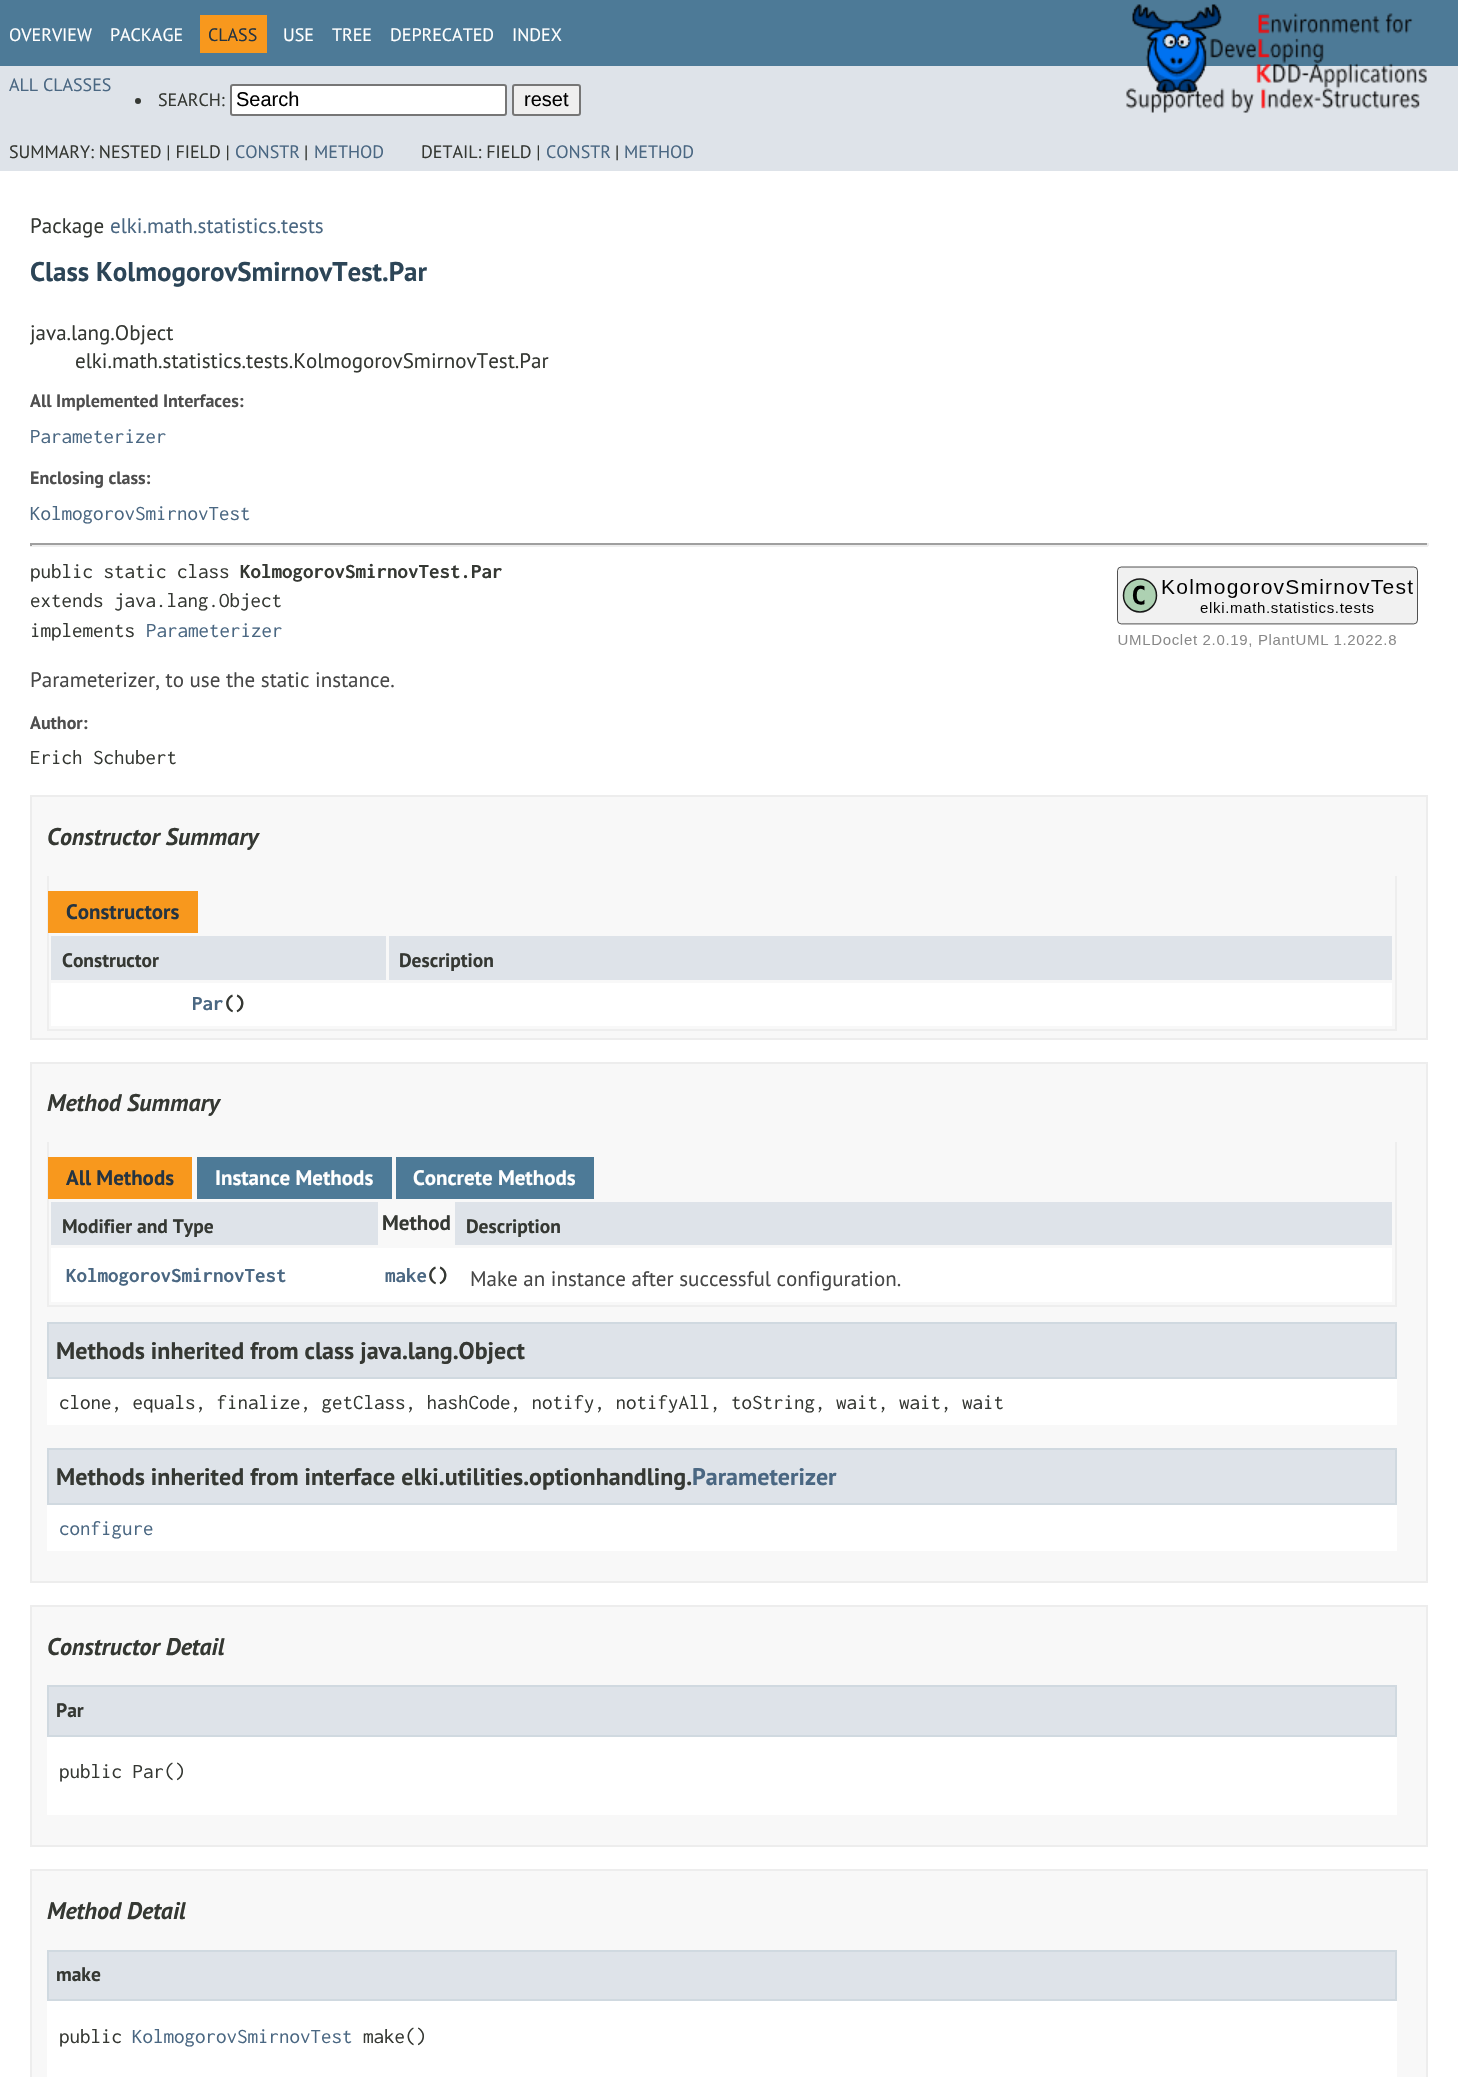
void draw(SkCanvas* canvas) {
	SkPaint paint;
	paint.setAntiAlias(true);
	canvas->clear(0xffffffff);
	paint.setColor(0xff4d7a97);
	canvas->drawRect(SkRect::MakeXYWH(0, 0, 1458, 66), paint);
	SkFont f1(fontMgr->matchFamilyStyle("PT Sans", SkFontStyle::Normal()), 18);
	f1.setSubpixel(true);
	paint.setColor(0xffffffff);
	canvas->drawString("OVERVIEW", 9, 41, f1, paint);
	canvas->drawString("PACKAGE", 110, 41, f1, paint);
	paint.setColor(0xfff8981d);
	canvas->drawRect(SkRect::MakeXYWH(200, 15, 67, 38), paint);
	paint.setColor(0xff253441);
	canvas->drawString("CLASS", 208, 41, f1, paint);
	paint.setColor(0xffffffff);
	canvas->drawString("USE", 283, 41, f1, paint);
	canvas->drawString("TREE", 332, 41, f1, paint);
	canvas->drawString("DEPRECATED", 390, 41, f1, paint);
	canvas->drawString("INDEX", 512, 41, f1, paint);
	paint.setColor(0xffdee3e9);
	canvas->drawRect(SkRect::MakeXYWH(0, 66, 1458, 105), paint);
	canvas->drawImageRect(SkImages::DeferredFromEncodedData(SkData::MakeFromFileName("img1.png")), SkRect::MakeXYWH(1126, 4, 301, 109), SkSamplingOptions());
	paint.setColor(0xff4a6782);
	canvas->drawString("ALL CLASSES", 9, 91, f1, paint);
	paint.setColor(0xff353833);
	canvas->drawCircle(138, 101, 3, paint);
	canvas->drawString("SEARCH:", 158, 106, f1, paint);
	paint.setColor(0xffffffff);
	canvas->drawRoundRect(SkRect::MakeXYWH(231, 85, 275, 30), 2, 2, paint);
	paint.setStroke(true);
	paint.setStrokeWidth(2);
	paint.setColor(0xff767676);
	canvas->drawRoundRect(SkRect::MakeXYWH(231, 85, 275, 30), 2, 2, paint);
	SkFont f2(fontMgr->matchFamilyStyle("Liberation Sans", SkFontStyle::Normal()), 20);
	f2.setSubpixel(true);
	paint.setStroke(false);
	paint.setColor(0xff000000);
	canvas->drawString("Search", 236, 106, f2, paint);
	paint.setColor(0xffefefef);
	canvas->drawRoundRect(SkRect::MakeXYWH(513, 85, 67, 30), 2, 2, paint);
	paint.setStroke(true);
	paint.setColor(0xff767676);
	canvas->drawRoundRect(SkRect::MakeXYWH(513, 85, 67, 30), 2, 2, paint);
	paint.setStroke(false);
	paint.setColor(0xff000000);
	canvas->drawString("reset", 524, 106, f2, paint);
	paint.setColor(0xff353833);
	canvas->drawString("SUMMARY: NESTED | FIELD |", 9, 158, f1, paint);
	paint.setColor(0xff4a6782);
	canvas->drawString("CONSTR", 235, 158, f1, paint);
	paint.setColor(0xff353833);
	canvas->drawString("|", 304, 158, f1, paint);
	paint.setColor(0xff4a6782);
	canvas->drawString("METHOD", 314, 158, f1, paint);
	paint.setColor(0xff353833);
	canvas->drawString("DETAIL: FIELD |", 421, 158, f1, paint);
	paint.setColor(0xff4a6782);
	canvas->drawString("CONSTR", 546, 158, f1, paint);
	paint.setColor(0xff353833);
	canvas->drawString("|", 615, 158, f1, paint);
	paint.setColor(0xff4a6782);
	canvas->drawString("METHOD", 624, 158, f1, paint);
	SkFont f3(fontMgr->matchFamilyStyle("PT Sans", SkFontStyle::Normal()), 21);
	f3.setSubpixel(true);
	paint.setColor(0xff353833);
	canvas->drawString("Package", 30, 233, f3, paint);
	paint.setColor(0xff4a6782);
	canvas->drawString("elki.math.statistics.tests", 110, 233, f3, paint);
	SkFont f4(fontMgr->matchFamilyStyle("PT Sans", SkFontStyle::Bold()), 27);
	f4.setSubpixel(true);
	paint.setColor(0xff2c4557);
	canvas->drawString("Class KolmogorovSmirnovTest.Par", 30, 281, f4, paint);
	paint.setColor(0xff353833);
	canvas->drawString("java.lang.Object", 30, 340, f3, paint);
	canvas->drawString("elki.math.statistics.tests.KolmogorovSmirnovTest.Par", 75, 368, f3, paint);
	SkFont f5(fontMgr->matchFamilyStyle("PT Sans", SkFontStyle::Bold()), 18);
	f5.setSubpixel(true);
	paint.setColor(0xff4e4e4e);
	canvas->drawString("All Implemented Interfaces:", 30, 407, f5, paint);
	SkFont f6(fontMgr->matchFamilyStyle("Inconsolata", SkFontStyle::Normal()), 21);
	f6.setSubpixel(true);
	paint.setColor(0xff4a6782);
	canvas->drawString("Parameterizer", 30, 443, f6, paint);
	paint.setColor(0xff4e4e4e);
	canvas->drawString("Enclosing class:", 30, 484, f5, paint);
	paint.setColor(0xff4a6782);
	canvas->drawString("KolmogorovSmirnovTest", 30, 520, f6, paint);
	paint.setColor(0xff9f9f9f);
	canvas->drawRect(SkRect::MakeXYWH(30, 543, 1398, 2), paint);
	paint.setColor(0xffeeeeee);
	canvas->drawRect(SkRect::MakeXYWH(1427, 543, 2, 3), paint);
	canvas->drawRect(SkRect::MakeXYWH(30, 545, 1398, 2), paint);
	paint.setColor(0xff9f9f9f);
	canvas->drawRect(SkRect::MakeXYWH(30, 543, 2, 3), paint);
	paint.setColor(0xff353833);
	canvas->drawString("public static class", 30, 578, f6, paint);
	SkFont f7(fontMgr->matchFamilyStyle("Inconsolata", SkFontStyle::Bold()), 21);
	f7.setSubpixel(true);
	canvas->drawString("KolmogorovSmirnovTest.Par", 240, 578, f7, paint);
	canvas->drawString("extends java.lang.Object", 30, 607, f6, paint);
	canvas->drawString("implements", 30, 637, f6, paint);
	paint.setColor(0xff4a6782);
	canvas->drawString("Parameterizer", 146, 637, f6, paint);
	canvas->drawImageRect(SkImages::DeferredFromEncodedData(SkData::MakeFromFileName("img2.png")), SkRect::MakeXYWH(1117, 566, 301, 81), SkSamplingOptions());
	paint.setColor(0xff474747);
	canvas->drawString("Parameterizer, to use the static instance.", 30, 687, f3, paint);
	paint.setColor(0xff4e4e4e);
	canvas->drawString("Author:", 30, 729, f5, paint);
	paint.setColor(0xff353833);
	canvas->drawString("Erich Schubert", 30, 764, f6, paint);
	paint.setColor(0xfff8f8f8);
	canvas->drawRect(SkRect::MakeXYWH(31, 796, 1396, 243), paint);
	paint.setStroke(true);
	paint.setColor(0xffededed);
	canvas->drawRect(SkRect::MakeXYWH(31, 796, 1396, 243), paint);
	SkFont f8(fontMgr->matchFamilyStyle("PT Sans", SkFontStyle::BoldItalic()), 24);
	f8.setSubpixel(true);
	paint.setStroke(false);
	paint.setColor(0xff353833);
	canvas->drawString("Constructor Summary", 47, 845, f8, paint);
	paint.setColor(0xffeeeeee);
	canvas->drawRect(SkRect::MakeXYWH(1395, 876, 2, 155), paint);
	canvas->drawRect(SkRect::MakeXYWH(47, 1029, 1350, 2), paint);
	canvas->drawRect(SkRect::MakeXYWH(47, 876, 2, 155), paint);
	paint.setColor(0xfff8981d);
	canvas->drawRect(SkRect::MakeXYWH(48, 891, 150, 42), paint);
	SkFont f9(fontMgr->matchFamilyStyle("PT Sans", SkFontStyle::Bold()), 21);
	f9.setSubpixel(true);
	paint.setColor(0xff253441);
	canvas->drawString("Constructors", 66, 919, f9, paint);
	paint.setColor(0xffdee3e9);
	canvas->drawRect(SkRect::MakeXYWH(51, 936, 335, 44), paint);
	SkFont f10(fontMgr->matchFamilyStyle("PT Sans", SkFontStyle::Bold()), 19.5);
	f10.setSubpixel(true);
	paint.setColor(0xff353833);
	canvas->drawString("Constructor", 62, 967, f10, paint);
	paint.setColor(0xffdee3e9);
	canvas->drawRect(SkRect::MakeXYWH(389, 936, 1003, 44), paint);
	paint.setColor(0xff353833);
	canvas->drawString("Description", 399, 967, f10, paint);
	paint.setColor(0xffffffff);
	canvas->drawRect(SkRect::MakeXYWH(51, 983, 1341, 43), paint);
	paint.setColor(0xff4a6782);
	canvas->drawString("Par", 192, 1010, f7, paint);
	paint.setColor(0xff353833);
	canvas->drawString("()", 224, 1010, f7, paint);
	paint.setColor(0xfff8f8f8);
	canvas->drawRect(SkRect::MakeXYWH(31, 1063, 1396, 519), paint);
	paint.setStroke(true);
	paint.setColor(0xffededed);
	canvas->drawRect(SkRect::MakeXYWH(31, 1063, 1396, 519), paint);
	paint.setStroke(false);
	paint.setColor(0xff353833);
	canvas->drawString("Method Summary", 47, 1111, f8, paint);
	paint.setColor(0xffeeeeee);
	canvas->drawRect(SkRect::MakeXYWH(1395, 1142, 2, 165), paint);
	canvas->drawRect(SkRect::MakeXYWH(47, 1305, 1350, 2), paint);
	canvas->drawRect(SkRect::MakeXYWH(47, 1142, 2, 165), paint);
	paint.setColor(0xfff8981d);
	canvas->drawRect(SkRect::MakeXYWH(48, 1157, 144, 42), paint);
	paint.setColor(0xff253441);
	canvas->drawString("All Methods", 66, 1185, f9, paint);
	paint.setColor(0xff4d7a97);
	canvas->drawRect(SkRect::MakeXYWH(197, 1157, 195, 42), paint);
	paint.setColor(0xffffffff);
	canvas->drawString("Instance Methods", 215, 1185, f9, paint);
	paint.setColor(0xff4d7a97);
	canvas->drawRect(SkRect::MakeXYWH(396, 1157, 198, 42), paint);
	paint.setColor(0xffffffff);
	canvas->drawString("Concrete Methods", 413, 1185, f9, paint);
	paint.setColor(0xffdee3e9);
	canvas->drawRect(SkRect::MakeXYWH(51, 1202, 327, 43), paint);
	paint.setColor(0xff353833);
	canvas->drawString("Modifier and Type", 62, 1233, f10, paint);
	canvas->drawString("Method", 382, 1230, f9, paint);
	paint.setColor(0xffdee3e9);
	canvas->drawRect(SkRect::MakeXYWH(455, 1202, 937, 43), paint);
	paint.setColor(0xff353833);
	canvas->drawString("Description", 466, 1233, f10, paint);
	paint.setColor(0xffffffff);
	canvas->drawRect(SkRect::MakeXYWH(51, 1248, 1341, 54), paint);
	paint.setColor(0xff4a6782);
	canvas->drawString("KolmogorovSmirnovTest", 66, 1282, f7, paint);
	canvas->drawString("make", 385, 1282, f7, paint);
	paint.setColor(0xff353833);
	canvas->drawString("()", 427, 1282, f7, paint);
	paint.setColor(0xff474747);
	canvas->drawString("Make an instance after successful configuration.", 470, 1286, f3, paint);
	paint.setColor(0xffffffff);
	canvas->drawRect(SkRect::MakeXYWH(47, 1379, 1350, 46), paint);
	paint.setColor(0xffdee3e9);
	canvas->drawRect(SkRect::MakeXYWH(48, 1323, 1348, 55), paint);
	paint.setStroke(true);
	paint.setColor(0xffd0d9e0);
	canvas->drawRect(SkRect::MakeXYWH(48, 1323, 1348, 55), paint);
	SkFont f11(fontMgr->matchFamilyStyle("PT Sans", SkFontStyle::Bold()), 24);
	f11.setSubpixel(true);
	paint.setStroke(false);
	paint.setColor(0xff353833);
	canvas->drawString("Methods inherited from class java.lang.Object", 56, 1359, f11, paint);
	canvas->drawString("clone, equals, finalize, getClass, hashCode, notify, notifyAll, toString, wait, wait, wait", 59, 1409, f6, paint);
	paint.setColor(0xffffffff);
	canvas->drawRect(SkRect::MakeXYWH(47, 1505, 1350, 46), paint);
	paint.setColor(0xffdee3e9);
	canvas->drawRect(SkRect::MakeXYWH(48, 1449, 1348, 55), paint);
	paint.setStroke(true);
	paint.setColor(0xffd0d9e0);
	canvas->drawRect(SkRect::MakeXYWH(48, 1449, 1348, 55), paint);
	paint.setStroke(false);
	paint.setColor(0xff353833);
	canvas->drawString("Methods inherited from interface elki.utilities.optionhandling.", 56, 1485, f11, paint);
	paint.setColor(0xff4a6782);
	canvas->drawString("Parameterizer", 692, 1485, f11, paint);
	canvas->drawString("configure", 59, 1535, f6, paint);
	paint.setColor(0xfff8f8f8);
	canvas->drawRect(SkRect::MakeXYWH(31, 1606, 1396, 240), paint);
	paint.setStroke(true);
	paint.setColor(0xffededed);
	canvas->drawRect(SkRect::MakeXYWH(31, 1606, 1396, 240), paint);
	paint.setStroke(false);
	paint.setColor(0xff353833);
	canvas->drawString("Constructor Detail", 47, 1655, f8, paint);
	paint.setColor(0xffffffff);
	canvas->drawRect(SkRect::MakeXYWH(47, 1737, 1350, 78), paint);
	paint.setColor(0xffdee3e9);
	canvas->drawRect(SkRect::MakeXYWH(48, 1686, 1348, 50), paint);
	paint.setStroke(true);
	paint.setColor(0xffd0d9e0);
	canvas->drawRect(SkRect::MakeXYWH(48, 1686, 1348, 50), paint);
	paint.setStroke(false);
	paint.setColor(0xff353833);
	canvas->drawString("Par", 56, 1717, f10, paint);
	canvas->drawString("public Par()", 59, 1778, f6, paint);
	paint.setColor(0xfff8f8f8);
	canvas->drawRect(SkRect::MakeXYWH(31, 1870, 1396, 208), paint);
	paint.setStroke(true);
	paint.setColor(0xffededed);
	canvas->drawRect(SkRect::MakeXYWH(31, 1870, 1396, 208), paint);
	paint.setStroke(false);
	paint.setColor(0xff353833);
	canvas->drawString("Method Detail", 47, 1919, f8, paint);
	paint.setColor(0xffffffff);
	canvas->drawRect(SkRect::MakeXYWH(47, 2001, 1350, 76), paint);
	paint.setColor(0xffdee3e9);
	canvas->drawRect(SkRect::MakeXYWH(48, 1951, 1348, 49), paint);
	paint.setStroke(true);
	paint.setColor(0xffd0d9e0);
	canvas->drawRect(SkRect::MakeXYWH(48, 1951, 1348, 49), paint);
	paint.setStroke(false);
	paint.setColor(0xff353833);
	canvas->drawString("make", 56, 1981, f10, paint);
	canvas->drawString("public", 59, 2043, f6, paint);
	paint.setColor(0xff4a6782);
	canvas->drawString("KolmogorovSmirnovTest", 132, 2043, f6, paint);
	paint.setColor(0xff353833);
	canvas->drawString("make()", 363, 2043, f6, paint);
}
